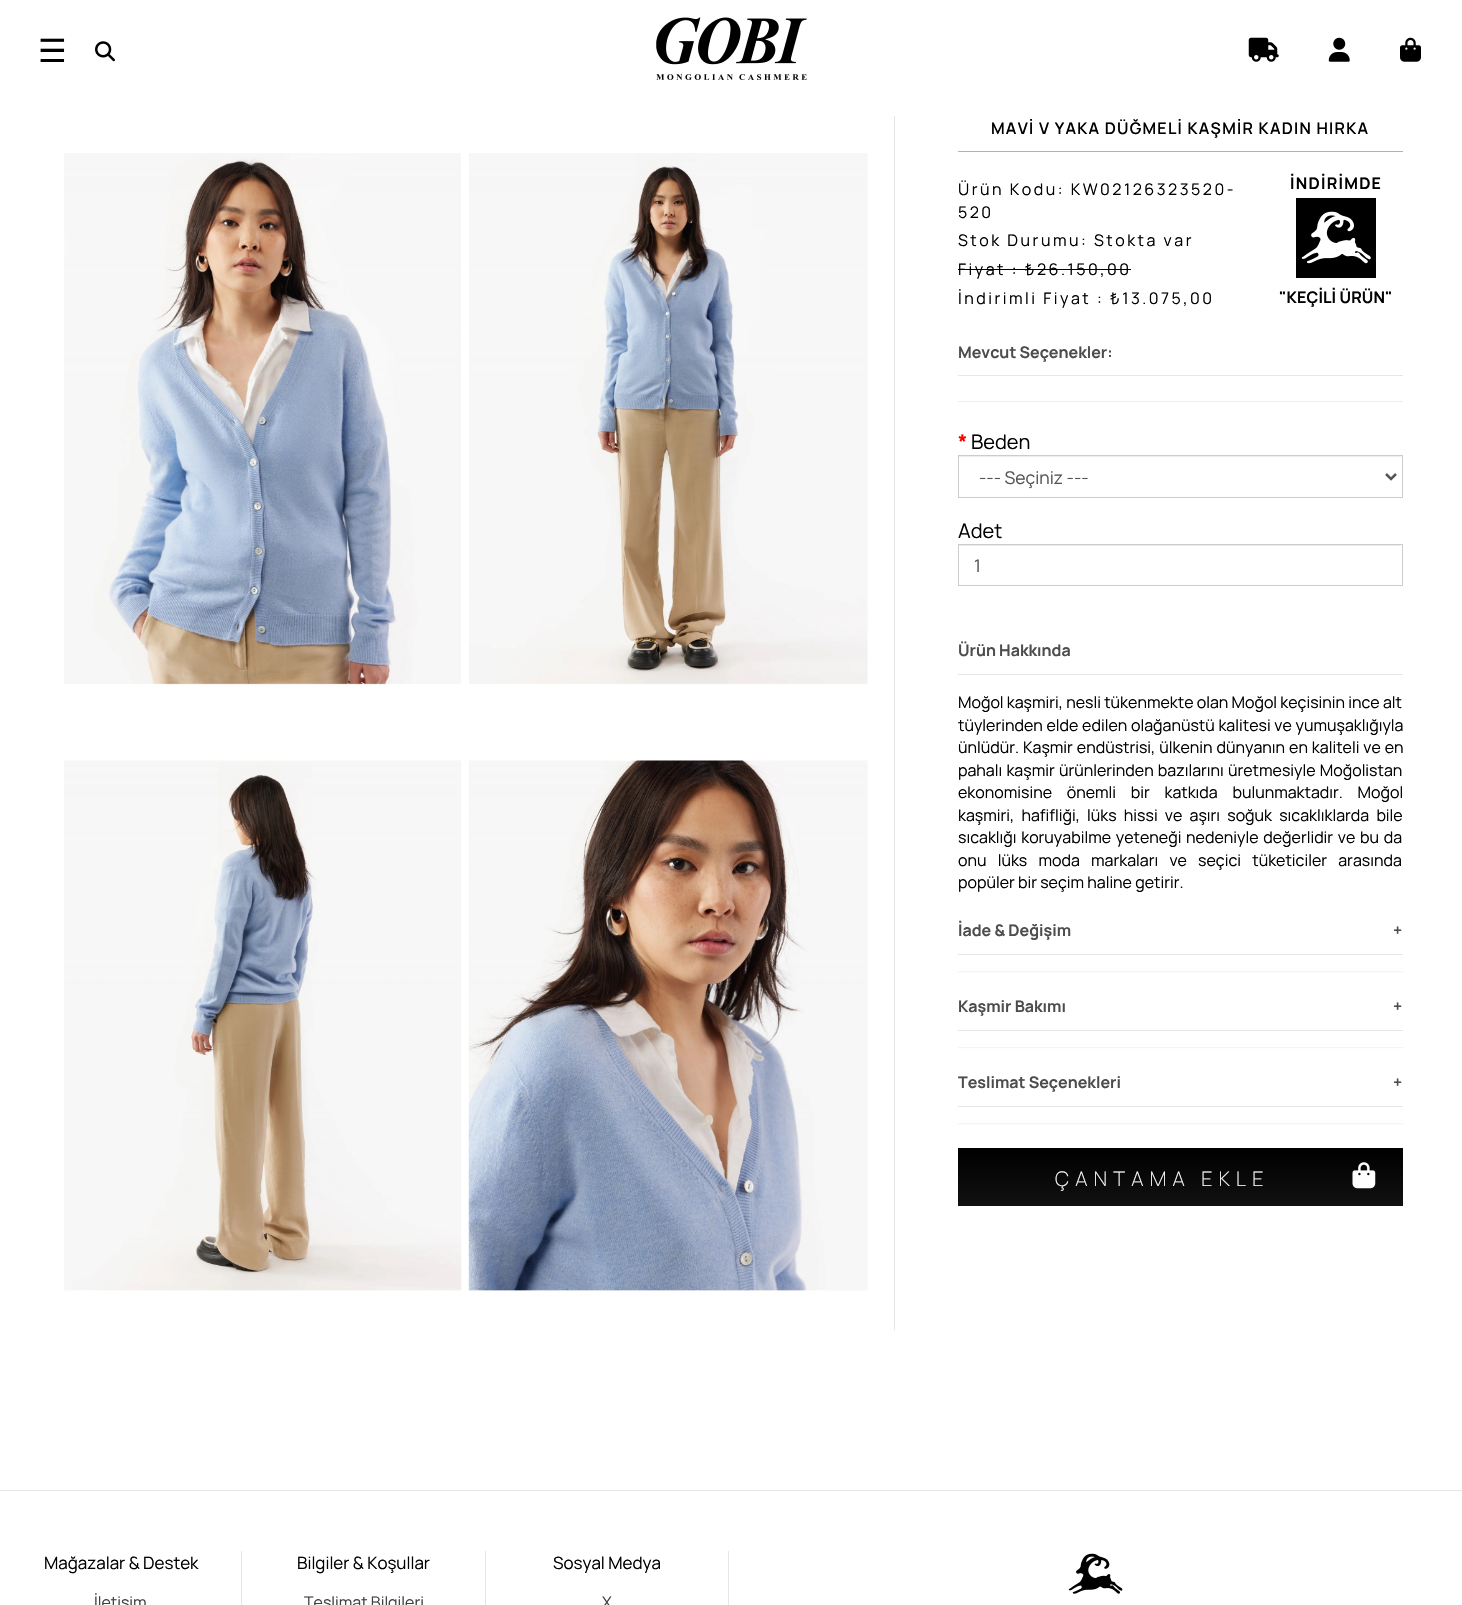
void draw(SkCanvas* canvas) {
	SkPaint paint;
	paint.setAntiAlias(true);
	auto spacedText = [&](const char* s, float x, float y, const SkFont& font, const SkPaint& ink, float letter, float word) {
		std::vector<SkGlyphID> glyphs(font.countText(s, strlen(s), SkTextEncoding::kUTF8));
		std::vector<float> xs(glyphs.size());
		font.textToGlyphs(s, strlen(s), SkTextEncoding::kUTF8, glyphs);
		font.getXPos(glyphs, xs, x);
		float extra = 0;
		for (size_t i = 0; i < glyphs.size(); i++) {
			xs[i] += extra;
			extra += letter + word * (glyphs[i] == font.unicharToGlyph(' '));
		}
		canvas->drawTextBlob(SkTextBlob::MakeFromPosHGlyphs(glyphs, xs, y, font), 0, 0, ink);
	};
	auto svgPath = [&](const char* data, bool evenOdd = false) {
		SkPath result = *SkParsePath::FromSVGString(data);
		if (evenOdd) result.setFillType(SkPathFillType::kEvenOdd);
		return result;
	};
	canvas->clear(0xffffffff);
	SkFont f1(fontMgr->matchFamilyStyle("DejaVu Sans", SkFontStyle::Normal()), 32);
	f1.setSubpixel(true);
	paint.setColor(0xff000000);
	canvas->drawString("☰", 38, 62, f1, paint);
	canvas->drawImageRect(SkImages::DeferredFromEncodedData(SkData::MakeFromFileName("img1.png")), SkRect::MakeXYWH(95, 41, 20, 21), SkSamplingOptions());
	canvas->drawImageRect(SkImages::DeferredFromEncodedData(SkData::MakeFromFileName("img2.png")), SkRect::MakeXYWH(656, 17, 151, 63), SkSamplingOptions());
	canvas->drawImageRect(SkImages::DeferredFromEncodedData(SkData::MakeFromFileName("img3.png")), SkRect::MakeXYWH(1248, 37, 31, 25), SkSamplingOptions());
	canvas->drawImageRect(SkImages::DeferredFromEncodedData(SkData::MakeFromFileName("img4.png")), SkRect::MakeXYWH(1328, 37, 22, 25), SkSamplingOptions());
	canvas->drawImageRect(SkImages::DeferredFromEncodedData(SkData::MakeFromFileName("img5.png")), SkRect::MakeXYWH(1400, 37, 21, 25), SkSamplingOptions());
	paint.setColor(0xffe6e6e6);
	canvas->drawRect(SkRect::MakeXYWH(894, 116, 1, 1214), paint);
	canvas->drawImageRect(SkImages::DeferredFromEncodedData(SkData::MakeFromFileName("img6.png")), SkRect::MakeXYWH(64, 153, 397, 534), SkSamplingOptions());
	canvas->drawImageRect(SkImages::DeferredFromEncodedData(SkData::MakeFromFileName("img7.png")), SkRect::MakeXYWH(469, 153, 399, 532), SkSamplingOptions());
	canvas->drawImageRect(SkImages::DeferredFromEncodedData(SkData::MakeFromFileName("img8.png")), SkRect::MakeXYWH(64, 760, 398, 531), SkSamplingOptions());
	canvas->drawImageRect(SkImages::DeferredFromEncodedData(SkData::MakeFromFileName("img9.png")), SkRect::MakeXYWH(468, 760, 400, 532), SkSamplingOptions());
	paint.setColor(0xffb3b3b3);
	canvas->drawRect(SkRect::MakeXYWH(958, 151, 445, 1), paint);
	SkFont f2(fontMgr->matchFamilyStyle("Manrope", SkFontStyle(600, SkFontStyle::kNormal_Width, SkFontStyle::kUpright_Slant)), 16);
	f2.setSubpixel(true);
	paint.setColor(0xff000000);
	spacedText("MAVİ V YAKA DÜĞMELİ KAŞMİR KADIN HIRKA", 991, 134, f2, paint, 1.25, 0);
	SkFont f3(fontMgr->matchFamilyStyle("Manrope", SkFontStyle::Normal()), 16);
	f3.setSubpixel(true);
	spacedText("Ürün Kodu: KW02126323520-", 958, 195, f3, paint, 2.5, 0);
	spacedText("520", 958, 218, f3, paint, 2.5, 0);
	spacedText("Stok Durumu: Stokta var", 958, 246, f3, paint, 2.5, 0);
	spacedText("Fiyat : ₺26.150,00", 958, 275, f3, paint, 2.5, 0);
	canvas->drawRect(SkRect::MakeXYWH(958, 269, 173, 1), paint);
	spacedText("İndirimli Fiyat : ₺13.075,00", 958, 304, f3, paint, 2.5, 0);
	SkFont f4(fontMgr->matchFamilyStyle("Manrope", SkFontStyle::Bold()), 16);
	f4.setSubpixel(true);
	spacedText("İNDİRİMDE", 1290, 189, f4, paint, 1.25, 0);
	canvas->drawRect(SkRect::MakeXYWH(1296, 198, 80, 80), paint);
	canvas->drawImageRect(SkImages::DeferredFromEncodedData(SkData::MakeFromFileName("img10.png")), SkRect::MakeXYWH(1301, 211, 70, 53), SkSamplingOptions());
	spacedText("\"KEÇİLİ ÜRÜN\"", 1279, 303, f4, paint, 0.1, 0);
	paint.setColor(0xffe6e6e6);
	canvas->drawRect(SkRect::MakeXYWH(958, 375, 445, 1), paint);
	paint.setColor(0xff4d4d4d);
	canvas->drawString("Mevcut Seçenekler:", 958, 358, f4, paint);
	paint.setColor(0xffeeeeee);
	canvas->drawRect(SkRect::MakeXYWH(958, 401, 445, 1), paint);
	SkFont f5(fontMgr->matchFamilyStyle("Manrope", SkFontStyle::Bold()), 20);
	f5.setSubpixel(true);
	paint.setColor(0xffff0000);
	canvas->drawString("*", 958, 449, f5, paint);
	SkFont f6(fontMgr->matchFamilyStyle("Manrope", SkFontStyle::Normal()), 20);
	f6.setSubpixel(true);
	paint.setColor(0xff000000);
	canvas->drawString("Beden", 971, 449, f6, paint);
	paint.setColor(0xffececec);
	canvas->drawRect(SkRect::MakeXYWH(959, 456, 442, 1), paint);
	paint.setStroke(true);
	paint.setStrokeWidth(1);
	paint.setColor(0xffcccccc);
	canvas->drawRect(SkRect::MakeXYWH(958.5, 455.5, 444, 42), paint);
	paint.setStrokeWidth(2.5);
	paint.setColor(0xff555555);
	canvas->drawPath(svgPath("M1386 474L1391 479L1396 474"), paint);
	SkFont f7(fontMgr->matchFamilyStyle("Manrope", SkFontStyle::Normal()), 17.5);
	f7.setSubpixel(true);
	paint.setStroke(false);
	canvas->drawString("--- Seçiniz ---", 979, 484, f7, paint);
	paint.setColor(0xff000000);
	canvas->drawString("Adet", 958, 538, f6, paint);
	paint.setColor(0xffececec);
	canvas->drawRect(SkRect::MakeXYWH(959, 545, 442, 1), paint);
	paint.setStroke(true);
	paint.setStrokeWidth(1);
	paint.setColor(0xffcccccc);
	canvas->drawRect(SkRect::MakeXYWH(958.5, 544.5, 444, 41), paint);
	paint.setStroke(false);
	paint.setColor(0xff555555);
	canvas->drawString("1", 974, 572, f7, paint);
	paint.setColor(0xffe6e6e6);
	canvas->drawRect(SkRect::MakeXYWH(958, 674, 445, 1), paint);
	paint.setColor(0xff4d4d4d);
	canvas->drawString("Ürün Hakkında", 958, 656, f4, paint);
	paint.setColor(0xff000000);
	canvas->drawString("Moğol kaşmiri, nesli tükenmekte olan Moğol keçisinin ince alt", 958, 708, f3, paint);
	spacedText("tüylerinden elde edilen olağanüstü kalitesi ve yumuşaklığıyla", 958, 731, f3, paint, 0, 0.5);
	spacedText("ünlüdür. Kaşmir endüstrisi, ülkenin dünyanın en kaliteli ve en", 958, 753, f3, paint, 0, 0.75);
	spacedText("pahalı kaşmir ürünlerinden bazılarını üretmesiyle Moğolistan", 958, 776, f3, paint, 0, 1);
	spacedText("ekonomisine önemli bir katkıda bulunmaktadır. Moğol", 958, 798, f3, paint, 0, 11.5);
	spacedText("kaşmiri, hafifliği, lüks hissi ve aşırı soğuk sıcaklıklarda bile", 958, 821, f3, paint, 0, 4);
	spacedText("sıcaklığı koruyabilme yeteneği nedeniyle değerlidir ve bu da", 958, 843, f3, paint, 0, 1.5);
	spacedText("onu lüks moda markaları ve seçici tüketiciler arasında", 958, 866, f3, paint, 0, 8);
	canvas->drawString("popüler bir seçim haline getirir.", 958, 888, f3, paint);
	paint.setColor(0xffe6e6e6);
	canvas->drawRect(SkRect::MakeXYWH(958, 954, 445, 1), paint);
	paint.setColor(0xff4d4d4d);
	canvas->drawString("İade & Değişim", 958, 936, f4, paint);
	canvas->drawString("+", 1393, 936, f4, paint);
	paint.setColor(0x0d000000);
	paint.setMaskFilter(SkMaskFilter::MakeBlur(kNormal_SkBlurStyle, 0.5));
	canvas->drawRect(SkRect::MakeXYWH(958, 969, 445, 3), paint);
	paint.setMaskFilter(nullptr);
	paint.setColor(0xffffffff);
	canvas->drawRect(SkRect::MakeXYWH(958, 969, 445, 2), paint);
	paint.setColor(0xffe6e6e6);
	canvas->drawRect(SkRect::MakeXYWH(958, 1030, 445, 1), paint);
	paint.setColor(0xff4d4d4d);
	canvas->drawString("Kaşmir Bakımı", 958, 1012, f4, paint);
	canvas->drawString("+", 1393, 1012, f4, paint);
	paint.setColor(0x0d000000);
	paint.setMaskFilter(SkMaskFilter::MakeBlur(kNormal_SkBlurStyle, 0.5));
	canvas->drawRect(SkRect::MakeXYWH(958, 1045, 445, 3), paint);
	paint.setMaskFilter(nullptr);
	paint.setColor(0xffffffff);
	canvas->drawRect(SkRect::MakeXYWH(958, 1045, 445, 2), paint);
	paint.setColor(0xffe6e6e6);
	canvas->drawRect(SkRect::MakeXYWH(958, 1106, 445, 1), paint);
	paint.setColor(0xff4d4d4d);
	canvas->drawString("Teslimat Seçenekleri", 958, 1088, f4, paint);
	canvas->drawString("+", 1393, 1088, f4, paint);
	paint.setColor(0x0d000000);
	paint.setMaskFilter(SkMaskFilter::MakeBlur(kNormal_SkBlurStyle, 0.5));
	canvas->drawRect(SkRect::MakeXYWH(958, 1121, 445, 3), paint);
	paint.setMaskFilter(nullptr);
	paint.setColor(0xffffffff);
	canvas->drawRect(SkRect::MakeXYWH(958, 1121, 445, 2), paint);
	{
		const SkColor colors[] = {0xff000000, 0xff111111};
		const float stops[] = {0, 1};
		const SkPoint ends[] = {{1180, 1148}, {1180, 1206}};
		paint.setShader(SkGradientShader::MakeLinear(ends, colors, stops, 2, SkTileMode::kClamp));
		paint.setAlpha(255);
	}
	canvas->drawRect(SkRect::MakeXYWH(958, 1148, 445, 58), paint);
	SkFont f8(fontMgr->matchFamilyStyle("Manrope", SkFontStyle(200, SkFontStyle::kNormal_Width, SkFontStyle::kUpright_Slant)), 20);
	f8.setSubpixel(true);
	paint.setShader(nullptr);
	paint.setColor(0xfffdfdfd);
	spacedText("ÇANTAMA EKLE", 1055, 1186, f8, paint, 6.25, 0);
	canvas->drawImageRect(SkImages::DeferredFromEncodedData(SkData::MakeFromFileName("img11.png")), SkRect::MakeXYWH(1352, 1162, 24, 27), SkSamplingOptions());
	paint.setColor(0xffe6e6e6);
	canvas->drawRect(SkRect::MakeXYWH(0, 1490, 1462, 1), paint);
	canvas->drawRect(SkRect::MakeXYWH(241, 1551, 1, 54), paint);
	SkFont f9(fontMgr->matchFamilyStyle("Manrope", SkFontStyle::Normal()), 17);
	f9.setSubpixel(true);
	paint.setColor(0xff000000);
	canvas->drawString("Mağazalar & Destek", 44, 1569, f9, paint);
	paint.setColor(0xff404040);
	canvas->drawString("İletişim", 94, 1608, f3, paint);
	paint.setColor(0xffe6e6e6);
	canvas->drawRect(SkRect::MakeXYWH(485, 1551, 1, 54), paint);
	paint.setColor(0xff000000);
	canvas->drawString("Bilgiler & Koşullar", 297, 1569, f9, paint);
	paint.setColor(0xff404040);
	canvas->drawString("Teslimat Bilgileri", 304, 1608, f3, paint);
	paint.setColor(0xffe6e6e6);
	canvas->drawRect(SkRect::MakeXYWH(728, 1551, 1, 54), paint);
	paint.setColor(0xff000000);
	canvas->drawString("Sosyal Medya", 553, 1569, f9, paint);
	paint.setColor(0xff404040);
	canvas->drawString("X", 602, 1608, f3, paint);
	canvas->drawImageRect(SkImages::DeferredFromEncodedData(SkData::MakeFromFileName("img12.png")), SkRect::MakeXYWH(1068, 1553, 55, 41), SkSamplingOptions());
}
